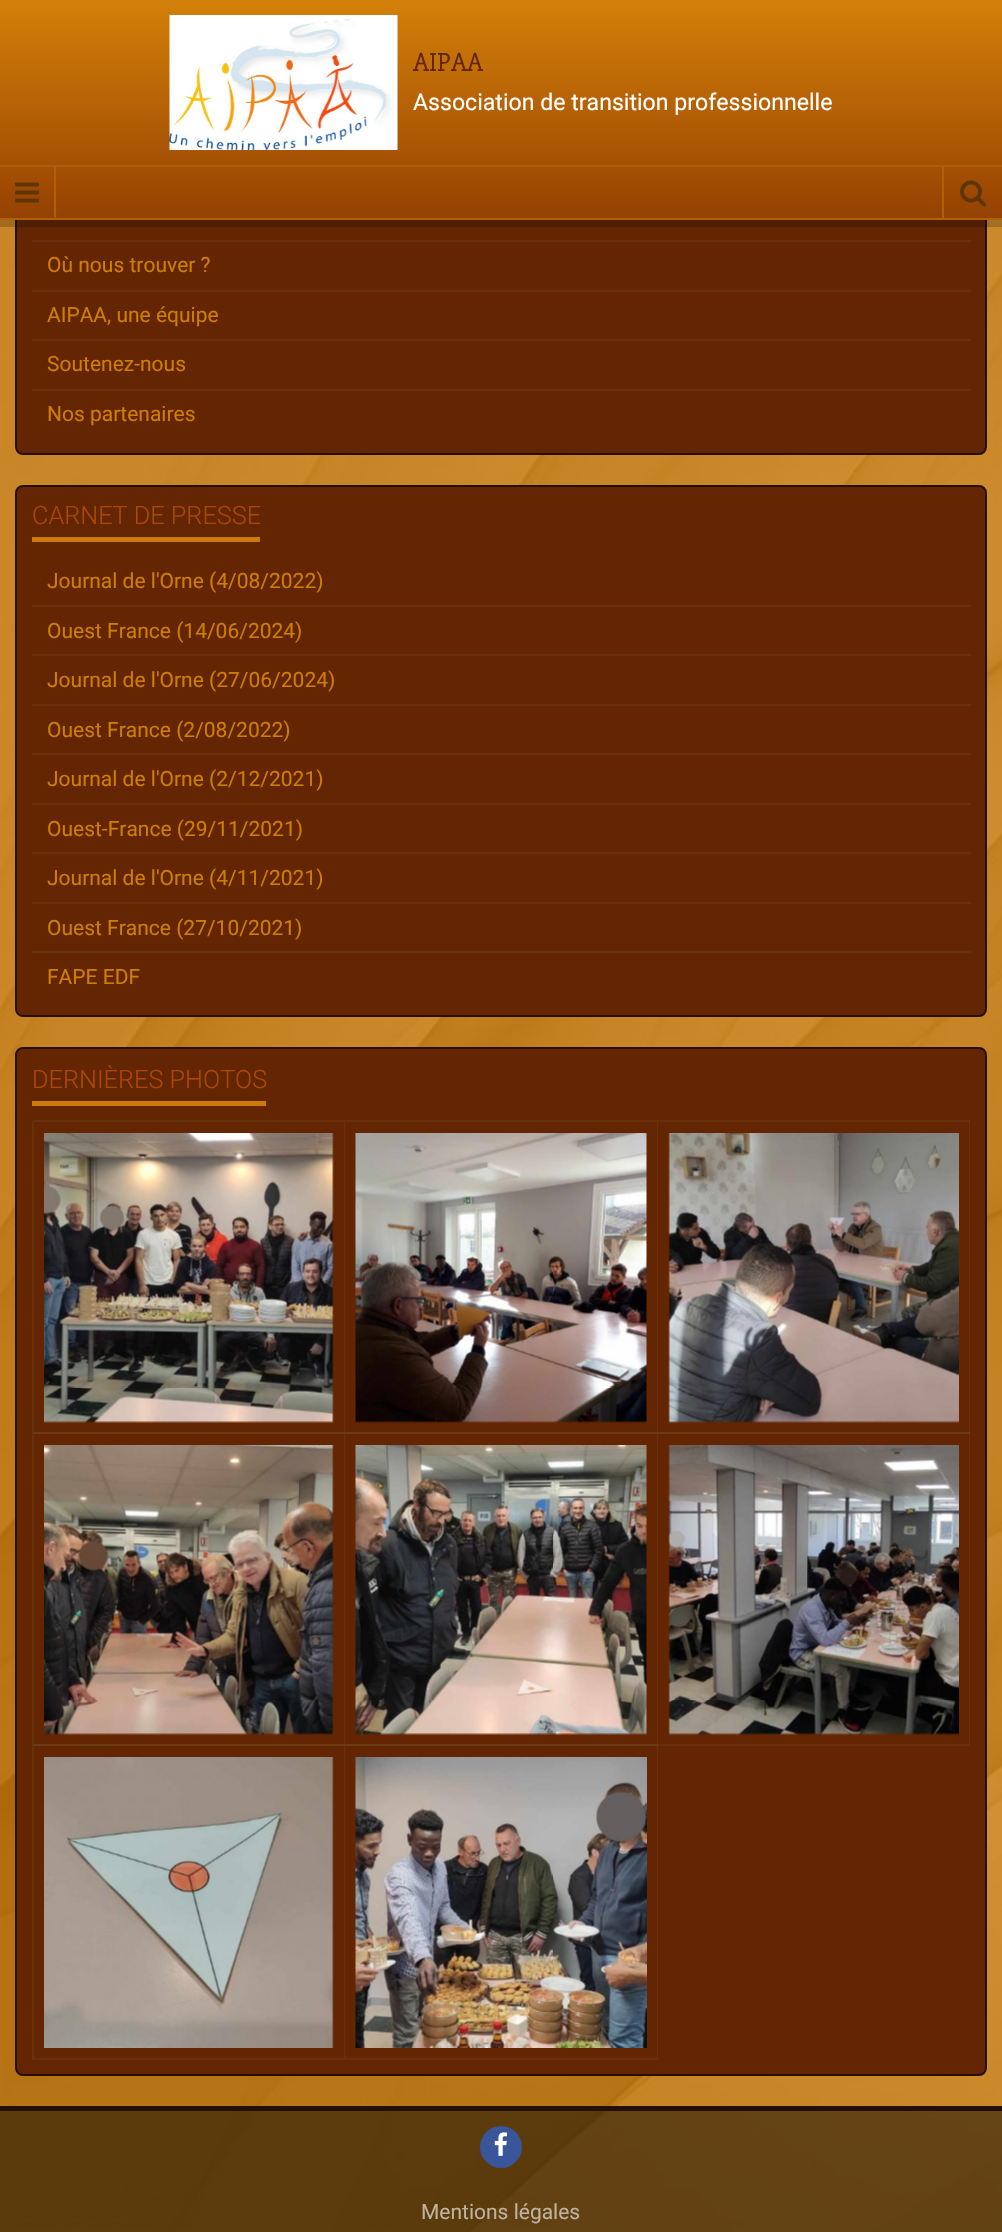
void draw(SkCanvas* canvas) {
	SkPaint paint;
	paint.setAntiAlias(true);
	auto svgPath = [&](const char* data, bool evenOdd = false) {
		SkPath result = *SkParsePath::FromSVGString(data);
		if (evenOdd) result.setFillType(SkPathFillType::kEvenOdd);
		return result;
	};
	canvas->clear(0xffd3800a);
	canvas->drawImageRect(SkImages::DeferredFromEncodedData(SkData::MakeFromFileName("img1.png")), SkRect::MakeXYWH(0, 220, 1002, 2012), SkSamplingOptions());
	paint.setColor(0xff642502);
	canvas->drawRoundRect(SkRect::MakeXYWH(16, 120, 970, 334), 7, 7, paint);
	paint.setStroke(true);
	paint.setStrokeWidth(2);
	paint.setColor(0xff230f03);
	canvas->drawRoundRect(SkRect::MakeXYWH(16, 120, 970, 334), 7, 7, paint);
	paint.setStroke(false);
	paint.setColor(0x33000000);
	canvas->drawRect(SkRect::MakeXYWH(0, 220, 1002, 7), paint);
	{
		const SkColor colors[] = {0xffd4800a, 0xff954102};
		const float stops[] = {0, 1};
		const SkPoint ends[] = {{501, 0}, {501, 219}};
		paint.setShader(SkGradientShader::MakeLinear(ends, colors, stops, 2, SkTileMode::kClamp));
		paint.setAlpha(255);
	}
	canvas->drawRect(SkRect::MakeXYWH(0, 9, 1002, 209), paint);
	canvas->drawImageRect(SkImages::DeferredFromEncodedData(SkData::MakeFromFileName("img2.png")), SkRect::MakeXYWH(169, 15, 229, 135), SkSamplingOptions());
	SkFont f1(fontMgr->matchFamilyStyle("Slabo 27px", SkFontStyle::Normal()), 27);
	f1.setSubpixel(true);
	paint.setShader(nullptr);
	paint.setColor(0xff642502);
	canvas->drawString("AIPAA", 413, 71, f1, paint);
	SkFont f2(fontMgr->matchFamilyStyle("Roboto", SkFontStyle::Normal()), 23.1);
	f2.setSubpixel(true);
	paint.setColor(0xffffffff);
	canvas->drawString("Association de transition professionnelle", 413, 110, f2, paint);
	paint.setColor(0xffb35f05);
	canvas->drawRect(SkRect::MakeXYWH(0, 165, 1002, 2), paint);
	canvas->drawRect(SkRect::MakeXYWH(0, 218, 1002, 2), paint);
	canvas->drawPath(svgPath("M56 166V218L54 216V168Z"), paint);
	canvas->drawImageRect(SkImages::DeferredFromEncodedData(SkData::MakeFromFileName("img3.png")), SkRect::MakeXYWH(15, 182, 24, 21), SkSamplingOptions());
	canvas->drawRect(SkRect::MakeXYWH(942, 167, 2, 51), paint);
	canvas->drawImageRect(SkImages::DeferredFromEncodedData(SkData::MakeFromFileName("img4.png")), SkRect::MakeXYWH(960, 180, 26, 27), SkSamplingOptions());
	paint.setColor(0xff67320b);
	canvas->drawRect(SkRect::MakeXYWH(32, 240, 939, 2), paint);
	canvas->drawRect(SkRect::MakeXYWH(32, 290, 939, 2), paint);
	SkFont f3(fontMgr->matchFamilyStyle("Roboto", SkFontStyle::Normal()), 21);
	f3.setSubpixel(true);
	paint.setColor(0xffce7e00);
	canvas->drawString("Où nous trouver ?", 47, 272, f3, paint);
	paint.setColor(0xff67320b);
	canvas->drawRect(SkRect::MakeXYWH(32, 339, 939, 2), paint);
	paint.setColor(0xffce7e00);
	canvas->drawString("AIPAA, une équipe", 47, 322, f3, paint);
	paint.setColor(0xff67320b);
	canvas->drawRect(SkRect::MakeXYWH(32, 389, 939, 2), paint);
	paint.setColor(0xffce7e00);
	canvas->drawString("Soutenez-nous", 47, 371, f3, paint);
	canvas->drawString("Nos partenaires", 47, 421, f3, paint);
	paint.setColor(0xff642502);
	canvas->drawRoundRect(SkRect::MakeXYWH(16, 486, 970, 530), 7, 7, paint);
	paint.setStroke(true);
	paint.setColor(0xff230f03);
	canvas->drawRoundRect(SkRect::MakeXYWH(16, 486, 970, 530), 7, 7, paint);
	paint.setStroke(false);
	paint.setColor(0xffce7a09);
	canvas->drawRect(SkRect::MakeXYWH(32, 537, 228, 5), paint);
	SkFont f4(fontMgr->matchFamilyStyle("Roboto", SkFontStyle(300, SkFontStyle::kNormal_Width, SkFontStyle::kUpright_Slant)), 25.25);
	f4.setSubpixel(true);
	paint.setColor(0xffab4900);
	canvas->drawString("CARNET DE PRESSE", 32, 524, f4, paint);
	paint.setColor(0xff67320b);
	canvas->drawRect(SkRect::MakeXYWH(32, 605, 939, 2), paint);
	paint.setColor(0xffce7e00);
	canvas->drawString("Journal de l'Orne (4/08/2022)", 47, 588, f3, paint);
	paint.setColor(0xff67320b);
	canvas->drawRect(SkRect::MakeXYWH(32, 654, 939, 2), paint);
	paint.setColor(0xffce7e00);
	canvas->drawString("Ouest France (14/06/2024)", 47, 638, f3, paint);
	paint.setColor(0xff67320b);
	canvas->drawRect(SkRect::MakeXYWH(32, 704, 939, 2), paint);
	paint.setColor(0xffce7e00);
	canvas->drawString("Journal de l'Orne (27/06/2024)", 47, 687, f3, paint);
	paint.setColor(0xff67320b);
	canvas->drawRect(SkRect::MakeXYWH(32, 753, 939, 2), paint);
	paint.setColor(0xffce7e00);
	canvas->drawString("Ouest France (2/08/2022)", 47, 737, f3, paint);
	paint.setColor(0xff67320b);
	canvas->drawRect(SkRect::MakeXYWH(32, 803, 939, 2), paint);
	paint.setColor(0xffce7e00);
	canvas->drawString("Journal de l'Orne (2/12/2021)", 47, 786, f3, paint);
	paint.setColor(0xff67320b);
	canvas->drawRect(SkRect::MakeXYWH(32, 852, 939, 2), paint);
	paint.setColor(0xffce7e00);
	canvas->drawString("Ouest-France (29/11/2021)", 47, 836, f3, paint);
	paint.setColor(0xff67320b);
	canvas->drawRect(SkRect::MakeXYWH(32, 902, 939, 2), paint);
	paint.setColor(0xffce7e00);
	canvas->drawString("Journal de l'Orne (4/11/2021)", 47, 885, f3, paint);
	paint.setColor(0xff67320b);
	canvas->drawRect(SkRect::MakeXYWH(32, 951, 939, 2), paint);
	paint.setColor(0xffce7e00);
	canvas->drawString("Ouest France (27/10/2021)", 47, 935, f3, paint);
	canvas->drawString("FAPE EDF", 47, 984, f3, paint);
	paint.setColor(0xff642502);
	canvas->drawRoundRect(SkRect::MakeXYWH(16, 1048, 970, 1027), 7, 7, paint);
	paint.setStroke(true);
	paint.setColor(0xff230f03);
	canvas->drawRoundRect(SkRect::MakeXYWH(16, 1048, 970, 1027), 7, 7, paint);
	paint.setStroke(false);
	paint.setColor(0xffce7a09);
	canvas->drawRect(SkRect::MakeXYWH(32, 1101, 234, 5), paint);
	paint.setColor(0xffab4900);
	canvas->drawString("DERNIÈRES PHOTOS", 32, 1088, f4, paint);
	paint.setColor(0xff67320b);
	canvas->drawRect(SkRect::MakeXYWH(32, 1121, 2, 939), paint);
	paint.setColor(0x3373652d);
	canvas->drawPath(svgPath("M33 1120H345L344 1122H33Z"), paint);
	canvas->drawPath(svgPath("M345 1120V1434L344 1432V1122Z"), paint);
	canvas->drawPath(svgPath("M345 1434H33V1432H344Z"), paint);
	canvas->drawImageRect(SkImages::DeferredFromEncodedData(SkData::MakeFromFileName("img5.png")), SkRect::MakeXYWH(44, 1133, 290, 290), SkSamplingOptions());
	paint.setColor(0xff67320b);
	canvas->drawPath(svgPath("M345 1120H658L657 1122H345Z"), paint);
	paint.setColor(0x3373652d);
	canvas->drawPath(svgPath("M658 1120V1434L657 1432V1122Z"), paint);
	canvas->drawPath(svgPath("M658 1434H345V1432H657Z"), paint);
	canvas->drawImageRect(SkImages::DeferredFromEncodedData(SkData::MakeFromFileName("img6.png")), SkRect::MakeXYWH(355, 1133, 292, 290), SkSamplingOptions());
	paint.setColor(0xff67320b);
	canvas->drawPath(svgPath("M658 1120H970L969 1122H658Z"), paint);
	paint.setColor(0x3373652d);
	canvas->drawPath(svgPath("M970 1120V1434L969 1432V1122Z"), paint);
	canvas->drawPath(svgPath("M970 1434H658V1432H969Z"), paint);
	canvas->drawImageRect(SkImages::DeferredFromEncodedData(SkData::MakeFromFileName("img7.png")), SkRect::MakeXYWH(668, 1133, 291, 290), SkSamplingOptions());
	canvas->drawPath(svgPath("M33 1432H345L344 1434H33Z"), paint);
	canvas->drawPath(svgPath("M345 1432V1746L344 1744V1434Z"), paint);
	canvas->drawPath(svgPath("M345 1746H33V1744H344Z"), paint);
	canvas->drawImageRect(SkImages::DeferredFromEncodedData(SkData::MakeFromFileName("img8.png")), SkRect::MakeXYWH(44, 1445, 290, 290), SkSamplingOptions());
	paint.setColor(0xff693c11);
	canvas->drawPath(svgPath("M345 1432H658L657 1434H345Z"), paint);
	paint.setColor(0x3373652d);
	canvas->drawPath(svgPath("M658 1432V1746L657 1744V1434Z"), paint);
	canvas->drawPath(svgPath("M658 1746H345V1744H657Z"), paint);
	canvas->drawImageRect(SkImages::DeferredFromEncodedData(SkData::MakeFromFileName("img9.png")), SkRect::MakeXYWH(355, 1445, 292, 290), SkSamplingOptions());
	paint.setColor(0xff693c11);
	canvas->drawPath(svgPath("M658 1432H970L969 1434H658Z"), paint);
	paint.setColor(0x3373652d);
	canvas->drawPath(svgPath("M970 1432V1746L969 1744V1434Z"), paint);
	canvas->drawPath(svgPath("M970 1746H658V1744H969Z"), paint);
	canvas->drawImageRect(SkImages::DeferredFromEncodedData(SkData::MakeFromFileName("img10.png")), SkRect::MakeXYWH(668, 1445, 291, 290), SkSamplingOptions());
	canvas->drawPath(svgPath("M33 1744H345L344 1746H33Z"), paint);
	canvas->drawPath(svgPath("M345 1744V2060L344 2058V1746Z"), paint);
	canvas->drawPath(svgPath("M345 2060H33V2058H344Z"), paint);
	canvas->drawImageRect(SkImages::DeferredFromEncodedData(SkData::MakeFromFileName("img11.png")), SkRect::MakeXYWH(44, 1757, 290, 291), SkSamplingOptions());
	paint.setColor(0xff693c11);
	canvas->drawPath(svgPath("M345 1744H658L657 1746H345Z"), paint);
	paint.setColor(0x3373652d);
	canvas->drawPath(svgPath("M658 1744V2060L657 2058V1746Z"), paint);
	canvas->drawPath(svgPath("M658 2060H345V2058H657Z"), paint);
	canvas->drawImageRect(SkImages::DeferredFromEncodedData(SkData::MakeFromFileName("img12.png")), SkRect::MakeXYWH(355, 1757, 292, 291), SkSamplingOptions());
	paint.setColor(0x80000000);
	canvas->drawRect(SkRect::MakeXYWH(0, 2111, 1002, 121), paint);
	paint.setColor(0xff230f03);
	canvas->drawRect(SkRect::MakeXYWH(0, 2106, 1002, 5), paint);
	paint.setColor(0xff385699);
	canvas->drawCircle(501, 2147, 21, paint);
	canvas->drawImageRect(SkImages::DeferredFromEncodedData(SkData::MakeFromFileName("img13.png")), SkRect::MakeXYWH(494, 2132, 13, 24), SkSamplingOptions());
	paint.setColor(0xffbfb29f);
	canvas->drawString("Mentions légales", 421, 2219, f3, paint);
}
